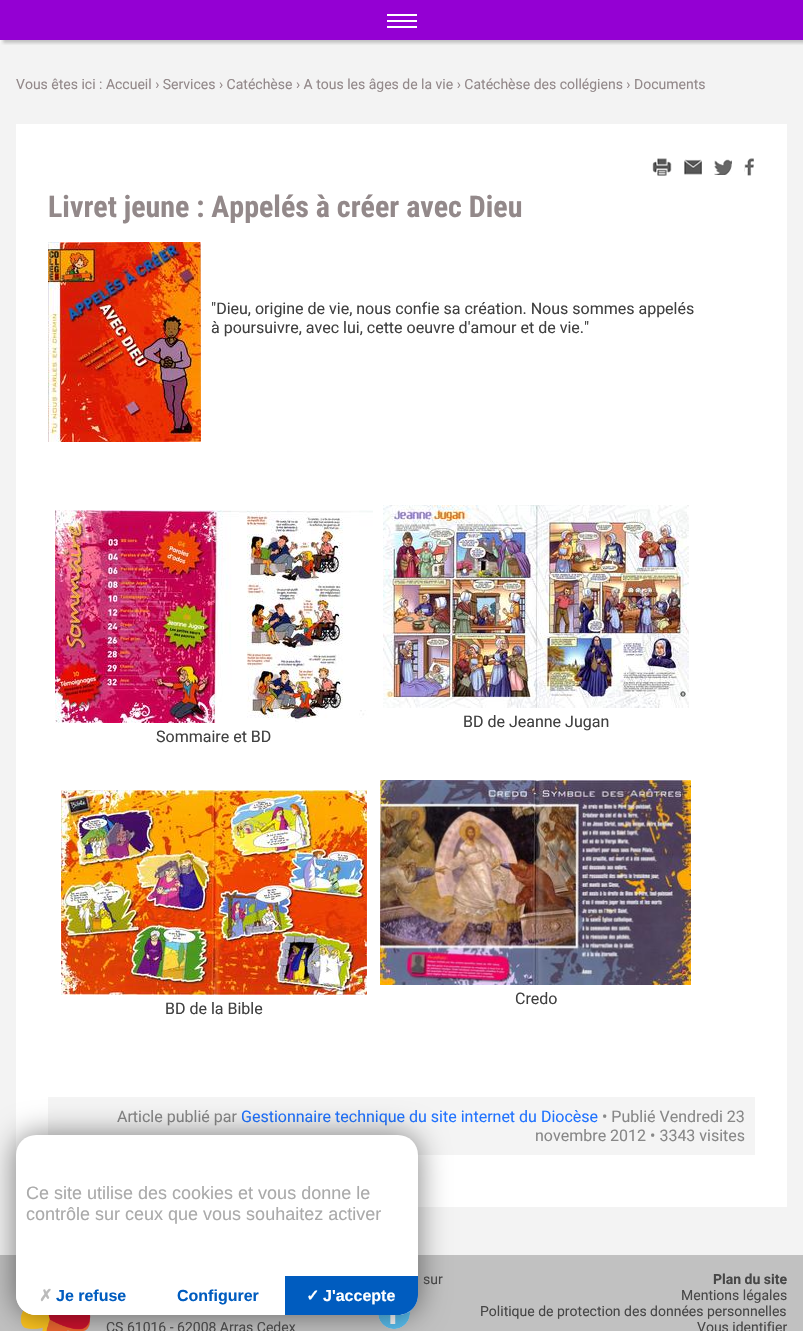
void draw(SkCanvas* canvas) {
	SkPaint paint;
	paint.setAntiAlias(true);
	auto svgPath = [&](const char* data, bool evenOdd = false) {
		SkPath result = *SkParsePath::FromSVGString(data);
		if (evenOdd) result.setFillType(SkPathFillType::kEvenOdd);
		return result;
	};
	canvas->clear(0xfff3f3f3);
	paint.setColor(0xff9400d3);
	canvas->drawRect(SkRect::MakeXYWH(0, 0, 803, 40), paint);
	canvas->save();
	canvas->clipRect(SkRect::MakeXYWH(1, 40, 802, 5));
	paint.setColor(0x33000000);
	paint.setMaskFilter(SkMaskFilter::MakeBlur(kNormal_SkBlurStyle, 1.5));
	canvas->drawRect(SkRect::MakeXYWH(3, 3, 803, 40), paint);
	paint.setMaskFilter(nullptr);
	canvas->restore();
	paint.setColor(0xffffffff);
	canvas->drawRect(SkRect::MakeXYWH(387, 20, 30, 2), paint);
	canvas->drawRect(SkRect::MakeXYWH(387, 14, 30, 2), paint);
	canvas->drawRect(SkRect::MakeXYWH(387, 26, 30, 2), paint);
	SkFont f1(fontMgr->matchFamilyStyle("Roboto", SkFontStyle::Normal()), 14);
	f1.setSubpixel(true);
	paint.setColor(0xff93898a);
	canvas->drawString("Vous êtes ici : Accueil › Services › Catéchèse › A tous les âges de la vie › Catéchèse des collégiens › Documents", 16, 89, f1, paint);
	paint.setColor(0xffffffff);
	canvas->drawRect(SkRect::MakeXYWH(16, 124, 771, 1083), paint);
	canvas->drawImageRect(SkImages::DeferredFromEncodedData(SkData::MakeFromFileName("img1.png")), SkRect::MakeXYWH(652, 158, 20, 18), SkSamplingOptions());
	canvas->drawImageRect(SkImages::DeferredFromEncodedData(SkData::MakeFromFileName("img2.png")), SkRect::MakeXYWH(684, 159, 18, 16), SkSamplingOptions());
	canvas->drawImageRect(SkImages::DeferredFromEncodedData(SkData::MakeFromFileName("img3.png")), SkRect::MakeXYWH(714, 159, 18, 16), SkSamplingOptions());
	canvas->drawImageRect(SkImages::DeferredFromEncodedData(SkData::MakeFromFileName("img4.png")), SkRect::MakeXYWH(744, 158, 10, 18), SkSamplingOptions());
	SkFont f2(fontMgr->matchFamilyStyle("Roboto Condensed", SkFontStyle::Bold()), 30);
	f2.setSubpixel(true);
	paint.setColor(0xff93898a);
	canvas->drawString("Livret jeune : Appelés à créer avec Dieu", 48, 217, f2, paint);
	canvas->drawImageRect(SkImages::DeferredFromEncodedData(SkData::MakeFromFileName("img5.png")), SkRect::MakeXYWH(48, 242, 153, 200), SkSamplingOptions());
	SkFont f3(fontMgr->matchFamilyStyle("Roboto", SkFontStyle::Normal()), 16);
	f3.setSubpixel(true);
	paint.setColor(0xff404040);
	canvas->drawString("\"Dieu, origine de vie, nous confie sa création. Nous sommes appelés", 211, 314, f3, paint);
	canvas->drawString("à poursuivre, avec lui, cette oeuvre d'amour et de vie.\"", 211, 333, f3, paint);
	canvas->drawImageRect(SkImages::DeferredFromEncodedData(SkData::MakeFromFileName("img6.png")), SkRect::MakeXYWH(383, 505, 306, 203), SkSamplingOptions());
	canvas->drawString("BD de Jeanne Jugan", 463, 727, f3, paint);
	canvas->drawImageRect(SkImages::DeferredFromEncodedData(SkData::MakeFromFileName("img7.png")), SkRect::MakeXYWH(55, 510, 318, 213), SkSamplingOptions());
	canvas->drawString("Sommaire et BD", 156, 742, f3, paint);
	canvas->drawImageRect(SkImages::DeferredFromEncodedData(SkData::MakeFromFileName("img8.png")), SkRect::MakeXYWH(380, 780, 311, 205), SkSamplingOptions());
	canvas->drawString("Credo", 515, 1004, f3, paint);
	canvas->drawImageRect(SkImages::DeferredFromEncodedData(SkData::MakeFromFileName("img9.png")), SkRect::MakeXYWH(61, 790, 306, 205), SkSamplingOptions());
	canvas->drawString("BD de la Bible", 165, 1014, f3, paint);
	paint.setColor(0xfff4f4f4);
	canvas->drawRect(SkRect::MakeXYWH(48, 1097, 707, 58), paint);
	paint.setColor(0xff888888);
	canvas->drawString("Article publié par", 117, 1122, f3, paint);
	paint.setColor(0xff2173ff);
	canvas->drawString("Gestionnaire technique du site internet du Diocèse", 241, 1122, f3, paint);
	paint.setColor(0xff888888);
	canvas->drawString("• Publié Vendredi 23", 602, 1122, f3, paint);
	canvas->drawString("novembre 2012 • 3343 visites", 535, 1141, f3, paint);
	paint.setColor(0xffc1c1c1);
	canvas->drawRect(SkRect::MakeXYWH(0, 1255, 803, 76), paint);
	canvas->drawImageRect(SkImages::DeferredFromEncodedData(SkData::MakeFromFileName("img10.png")), SkRect::MakeXYWH(378, 1311, 32, 18), SkSamplingOptions());
	canvas->drawImageRect(SkImages::DeferredFromEncodedData(SkData::MakeFromFileName("img11.png")), SkRect::MakeXYWH(20, 1310, 71, 21), SkSamplingOptions());
	paint.setColor(0x80000000);
	paint.setMaskFilter(SkMaskFilter::MakeBlur(kNormal_SkBlurStyle, 15));
	canvas->drawRoundRect(SkRect::MakeXYWH(16, 1135, 402, 180), 20, 20, paint);
	paint.setMaskFilter(nullptr);
	paint.setColor(0xffffffff);
	canvas->drawRoundRect(SkRect::MakeXYWH(16, 1135, 402, 180), 20, 20, paint);
	SkFont f4(fontMgr->matchFamilyStyle("Liberation Sans", SkFontStyle::Normal()), 18);
	f4.setSubpixel(true);
	paint.setColor(0xffaaaaaa);
	canvas->drawString("Ce site utilise des cookies et vous donne le", 26, 1199, f4, paint);
	canvas->drawString("contrôle sur ceux que vous souhaitez activer", 26, 1220, f4, paint);
	paint.setColor(0xffffffff);
	canvas->drawPath(svgPath("M16 1276H150V1315H36C25 1315 16 1306 16 1295Z"), paint);
	SkFont f5(fontMgr->matchFamilyStyle("DejaVu Sans", SkFontStyle::Bold()), 16);
	f5.setSubpixel(true);
	paint.setColor(0xffbbbbbb);
	canvas->drawString("✗", 39, 1301, f5, paint);
	SkFont f6(fontMgr->matchFamilyStyle("Liberation Sans", SkFontStyle::Bold()), 16);
	f6.setSubpixel(true);
	paint.setColor(0xff005cbf);
	canvas->drawString("Je refuse", 56, 1301, f6, paint);
	canvas->drawPath(svgPath("M284 1276H418V1295C418 1306 409 1315 398 1315H284Z"), paint);
	paint.setColor(0xffffffff);
	canvas->drawRect(SkRect::MakeXYWH(284, 1276, 1, 39), paint);
	paint.setColor(0xff005cbf);
	canvas->drawString("Configurer", 177, 1301, f6, paint);
	paint.setColor(0xffffffff);
	canvas->drawString("✓", 306, 1301, f5, paint);
	canvas->drawString("J'accepte", 323, 1301, f6, paint);
	paint.setColor(0xff474747);
	canvas->drawString("sur", 423, 1284, f1, paint);
	SkFont f7(fontMgr->matchFamilyStyle("Roboto", SkFontStyle::Bold()), 14);
	f7.setSubpixel(true);
	canvas->drawString("Plan du site", 713, 1284, f7, paint);
	canvas->drawString("Mentions légales", 681, 1300, f1, paint);
	canvas->drawString("Politique de protection des données personnelles", 480, 1316, f1, paint);
	canvas->drawString("Vous identifier", 697, 1332, f1, paint);
	canvas->drawString("CS 61016 - 62008 Arras Cedex", 106, 1332, f1, paint);
}
